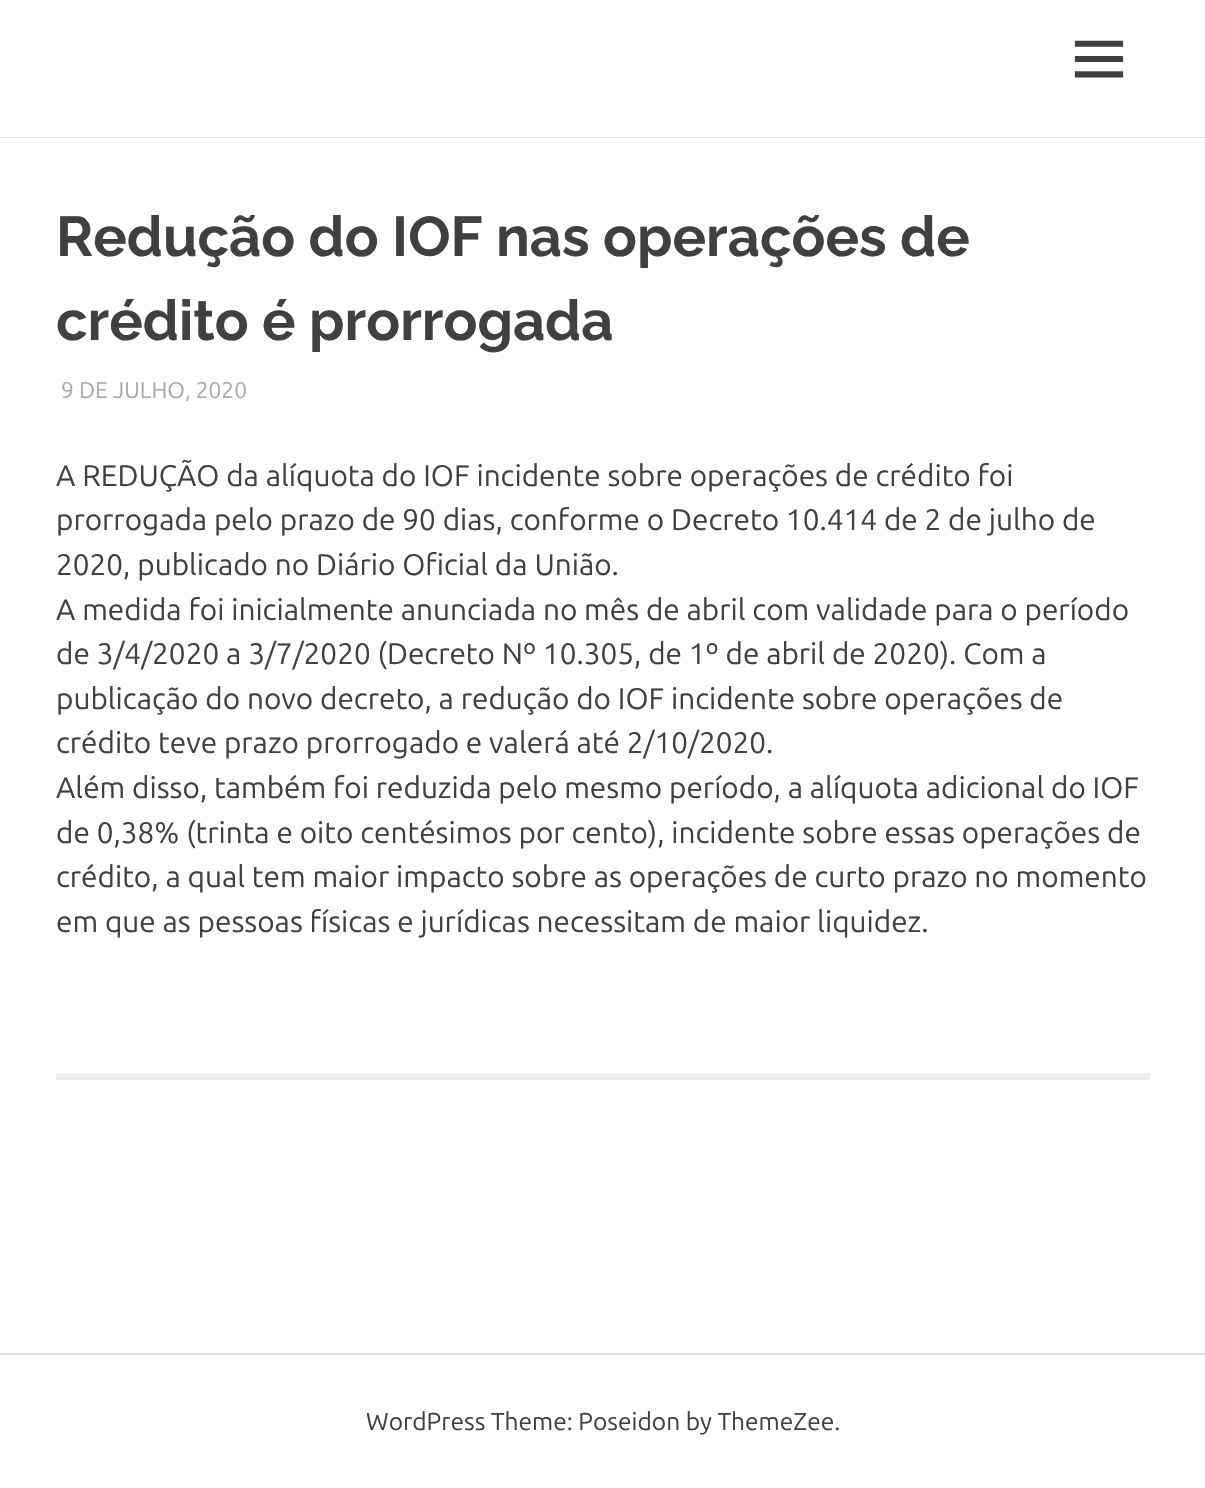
void draw(SkCanvas* canvas) {
	SkPaint paint;
	paint.setAntiAlias(true);
	canvas->clear(0xffffffff);
	paint.setColor(0xffe0e0e0);
	canvas->drawRect(SkRect::MakeXYWH(0, 137, 1205, 1), paint);
	canvas->drawImageRect(SkImages::DeferredFromEncodedData(SkData::MakeFromFileName("img1.png")), SkRect::MakeXYWH(1074, 40, 50, 38), SkSamplingOptions());
	SkFont f1(fontMgr->matchFamilyStyle("Raleway", SkFontStyle::Bold()), 56);
	f1.setSubpixel(true);
	paint.setColor(0xff404040);
	canvas->drawString("Redução do IOF nas operações de", 56, 256, f1, paint);
	canvas->drawString("crédito é prorrogada", 56, 340, f1, paint);
	SkFont f2(fontMgr->matchFamilyStyle("Ubuntu", SkFontStyle::Normal()), 22.75);
	f2.setSubpixel(true);
	paint.setColor(0xffaaaaaa);
	canvas->drawString("9 DE JULHO, 2020", 61, 398, f2, paint);
	SkFont f3(fontMgr->matchFamilyStyle("Ubuntu", SkFontStyle::Normal()), 29.75);
	f3.setSubpixel(true);
	paint.setColor(0xff404040);
	canvas->drawString("A REDUÇÃO da alíquota do IOF incidente sobre operações de crédito foi", 56, 486, f3, paint);
	canvas->drawString("prorrogada pelo prazo de 90 dias, conforme o Decreto 10.414 de 2 de julho de", 56, 530, f3, paint);
	canvas->drawString("2020, publicado no Diário Oficial da União.", 56, 575, f3, paint);
	canvas->drawString("A medida foi inicialmente anunciada no mês de abril com validade para o período", 56, 620, f3, paint);
	canvas->drawString("de 3/4/2020 a 3/7/2020 (Decreto Nº 10.305, de 1º de abril de 2020). Com a", 56, 664, f3, paint);
	canvas->drawString("publicação do novo decreto, a redução do IOF incidente sobre operações de", 56, 709, f3, paint);
	canvas->drawString("crédito teve prazo prorrogado e valerá até 2/10/2020.", 56, 753, f3, paint);
	canvas->drawString("Além disso, também foi reduzida pelo mesmo período, a alíquota adicional do IOF", 56, 798, f3, paint);
	canvas->drawString("de 0,38% (trinta e oito centésimos por cento), incidente sobre essas operações de", 56, 843, f3, paint);
	canvas->drawString("crédito, a qual tem maior impacto sobre as operações de curto prazo no momento", 56, 887, f3, paint);
	canvas->drawString("em que as pessoas físicas e jurídicas necessitam de maior liquidez.", 56, 932, f3, paint);
	paint.setColor(0xffeeeeee);
	canvas->drawRect(SkRect::MakeXYWH(56, 1073, 1094, 7), paint);
	paint.setColor(0xffe0e0e0);
	canvas->drawRect(SkRect::MakeXYWH(0, 1353, 1205, 2), paint);
	SkFont f4(fontMgr->matchFamilyStyle("Ubuntu", SkFontStyle::Normal()), 24.5);
	f4.setSubpixel(true);
	paint.setColor(0xff404040);
	canvas->drawString("WordPress Theme: Poseidon by ThemeZee.", 366, 1430, f4, paint);
}
